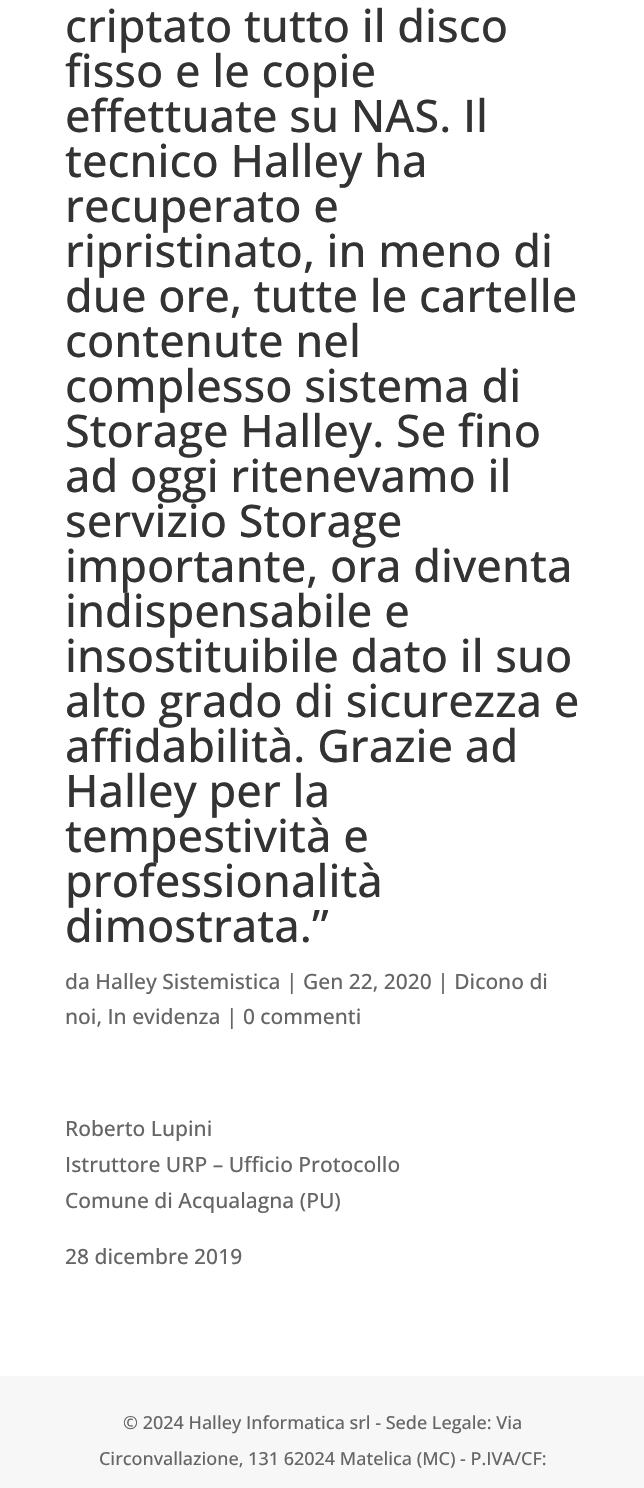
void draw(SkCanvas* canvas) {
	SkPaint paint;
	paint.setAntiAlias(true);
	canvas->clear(0xffffffff);
	SkFont f1(fontMgr->matchFamilyStyle("Open Sans", SkFontStyle(500, SkFontStyle::kNormal_Width, SkFontStyle::kUpright_Slant)), 45);
	f1.setSubpixel(true);
	paint.setColor(0xff333333);
	canvas->drawString("criptato tutto il disco", 65, 42, f1, paint);
	canvas->drawString("fisso e le copie", 65, 87, f1, paint);
	canvas->drawString("effettuate su NAS. Il", 65, 132, f1, paint);
	canvas->drawString("tecnico Halley ha", 65, 177, f1, paint);
	canvas->drawString("recuperato e", 65, 222, f1, paint);
	canvas->drawString("ripristinato, in meno di", 65, 267, f1, paint);
	canvas->drawString("due ore, tutte le cartelle", 65, 312, f1, paint);
	canvas->drawString("contenute nel", 65, 357, f1, paint);
	canvas->drawString("complesso sistema di", 65, 402, f1, paint);
	canvas->drawString("Storage Halley. Se fino", 65, 447, f1, paint);
	canvas->drawString("ad oggi ritenevamo il", 65, 492, f1, paint);
	canvas->drawString("servizio Storage", 65, 537, f1, paint);
	canvas->drawString("importante, ora diventa", 65, 582, f1, paint);
	canvas->drawString("indispensabile e", 65, 627, f1, paint);
	canvas->drawString("insostituibile dato il suo", 65, 672, f1, paint);
	canvas->drawString("alto grado di sicurezza e", 65, 717, f1, paint);
	canvas->drawString("affidabilità. Grazie ad", 65, 762, f1, paint);
	canvas->drawString("Halley per la", 65, 807, f1, paint);
	canvas->drawString("tempestività e", 65, 852, f1, paint);
	canvas->drawString("professionalità", 65, 897, f1, paint);
	canvas->drawString("dimostrata.”", 65, 942, f1, paint);
	SkFont f2(fontMgr->matchFamilyStyle("Open Sans", SkFontStyle(500, SkFontStyle::kNormal_Width, SkFontStyle::kUpright_Slant)), 21);
	f2.setSubpixel(true);
	paint.setColor(0xff666666);
	canvas->drawString("da Halley Sistemistica | Gen 22, 2020 | Dicono di", 65, 989, f2, paint);
	canvas->drawString("noi, In evidenza | 0 commenti", 65, 1024, f2, paint);
	canvas->drawString("Roberto Lupini", 65, 1136, f2, paint);
	canvas->drawString("Istruttore URP – Ufficio Protocollo", 65, 1172, f2, paint);
	canvas->drawString("Comune di Acqualagna (PU)", 65, 1208, f2, paint);
	canvas->drawString("28 dicembre 2019", 65, 1264, f2, paint);
	paint.setColor(0xfff7f7f7);
	canvas->drawRect(SkRect::MakeXYWH(0, 1376, 644, 112), paint);
	SkFont f3(fontMgr->matchFamilyStyle("Open Sans", SkFontStyle(500, SkFontStyle::kNormal_Width, SkFontStyle::kUpright_Slant)), 18);
	f3.setSubpixel(true);
	paint.setColor(0xff666666);
	canvas->drawString("© 2024 Halley Informatica srl - Sede Legale: Via", 123, 1429, f3, paint);
	canvas->drawString("Circonvallazione, 131 62024 Matelica (MC) - P.IVA/CF:", 99, 1465, f3, paint);
}
